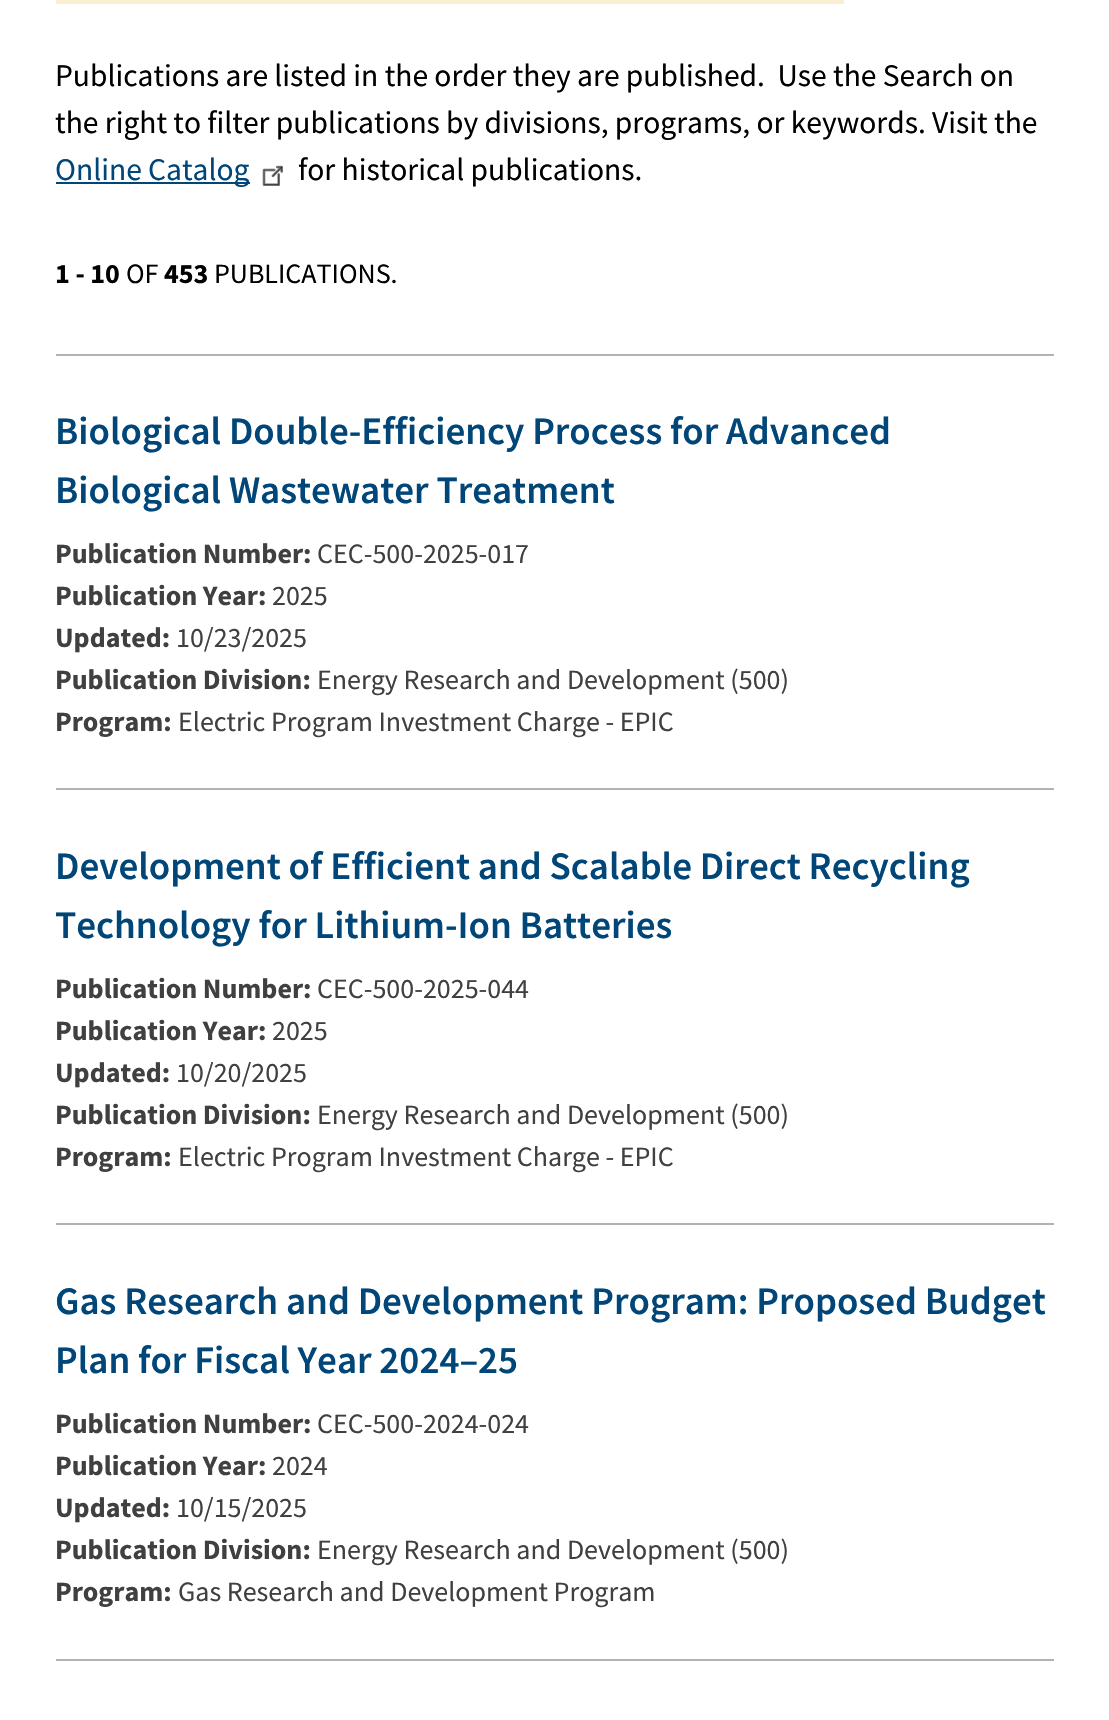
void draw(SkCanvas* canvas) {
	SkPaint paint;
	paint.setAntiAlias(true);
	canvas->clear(0xffffffff);
	paint.setColor(0xfffaeed2);
	canvas->drawRect(SkRect::MakeXYWH(56, 0, 788, 4), paint);
	SkFont f1(fontMgr->matchFamilyStyle("Source Sans Pro", SkFontStyle::Normal()), 31.5);
	f1.setSubpixel(true);
	paint.setColor(0xff000000);
	canvas->drawString("Publications are listed in the order they are published.  Use the Search on", 55, 86, f1, paint);
	canvas->drawString("the right to filter publications by divisions, programs, or keywords. Visit the", 55, 133, f1, paint);
	paint.setColor(0xff004678);
	canvas->drawRect(SkRect::MakeXYWH(56, 182, 194, 2), paint);
	canvas->drawString("Online Catalog", 55, 180, f1, paint);
	canvas->drawImageRect(SkImages::DeferredFromEncodedData(SkData::MakeFromFileName("img1.png")), SkRect::MakeXYWH(262, 165, 21, 21), SkSamplingOptions());
	paint.setColor(0xff000000);
	canvas->drawString("for historical publications.", 298, 180, f1, paint);
	SkFont f2(fontMgr->matchFamilyStyle("Source Sans Pro", SkFontStyle::Bold()), 28);
	f2.setSubpixel(true);
	canvas->drawString("1 - 10", 55, 283, f2, paint);
	SkFont f3(fontMgr->matchFamilyStyle("Source Sans Pro", SkFontStyle::Normal()), 28);
	f3.setSubpixel(true);
	canvas->drawString("OF", 126, 283, f3, paint);
	canvas->drawString("453", 164, 283, f2, paint);
	canvas->drawString("PUBLICATIONS.", 214, 283, f3, paint);
	paint.setColor(0xffb2b2b2);
	canvas->drawRect(SkRect::MakeXYWH(56, 354, 998, 2), paint);
	SkFont f4(fontMgr->matchFamilyStyle("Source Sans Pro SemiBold", SkFontStyle(600, SkFontStyle::kNormal_Width, SkFontStyle::kUpright_Slant)), 39);
	f4.setSubpixel(true);
	paint.setColor(0xff004678);
	canvas->drawString("Biological Double-Efficiency Process for Advanced", 55, 444, f4, paint);
	canvas->drawString("Biological Wastewater Treatment", 55, 503, f4, paint);
	paint.setColor(0xff404040);
	canvas->drawString("Publication Number:", 55, 563, f2, paint);
	canvas->drawString("CEC-500-2025-017", 317, 563, f3, paint);
	canvas->drawString("Publication Year:", 55, 605, f2, paint);
	canvas->drawString("2025", 272, 605, f3, paint);
	canvas->drawString("Updated:", 55, 647, f2, paint);
	canvas->drawString("10/23/2025", 176, 647, f3, paint);
	canvas->drawString("Publication Division:", 55, 689, f2, paint);
	canvas->drawString("Energy Research and Development (500)", 317, 689, f3, paint);
	canvas->drawString("Program:", 55, 731, f2, paint);
	canvas->drawString("Electric Program Investment Charge - EPIC", 178, 731, f3, paint);
	paint.setColor(0xffb2b2b2);
	canvas->drawRect(SkRect::MakeXYWH(56, 788, 998, 2), paint);
	paint.setColor(0xff004678);
	canvas->drawString("Development of Efficient and Scalable Direct Recycling", 55, 879, f4, paint);
	canvas->drawString("Technology for Lithium-Ion Batteries", 55, 938, f4, paint);
	paint.setColor(0xff404040);
	canvas->drawString("Publication Number:", 55, 998, f2, paint);
	canvas->drawString("CEC-500-2025-044", 317, 998, f3, paint);
	canvas->drawString("Publication Year:", 55, 1040, f2, paint);
	canvas->drawString("2025", 272, 1040, f3, paint);
	canvas->drawString("Updated:", 55, 1082, f2, paint);
	canvas->drawString("10/20/2025", 176, 1082, f3, paint);
	canvas->drawString("Publication Division:", 55, 1124, f2, paint);
	canvas->drawString("Energy Research and Development (500)", 317, 1124, f3, paint);
	canvas->drawString("Program:", 55, 1166, f2, paint);
	canvas->drawString("Electric Program Investment Charge - EPIC", 178, 1166, f3, paint);
	paint.setColor(0xffb2b2b2);
	canvas->drawRect(SkRect::MakeXYWH(56, 1223, 998, 2), paint);
	paint.setColor(0xff004678);
	canvas->drawString("Gas Research and Development Program: Proposed Budget", 55, 1314, f4, paint);
	canvas->drawString("Plan for Fiscal Year 2024–25", 55, 1373, f4, paint);
	paint.setColor(0xff404040);
	canvas->drawString("Publication Number:", 55, 1433, f2, paint);
	canvas->drawString("CEC-500-2024-024", 317, 1433, f3, paint);
	canvas->drawString("Publication Year:", 55, 1475, f2, paint);
	canvas->drawString("2024", 272, 1475, f3, paint);
	canvas->drawString("Updated:", 55, 1517, f2, paint);
	canvas->drawString("10/15/2025", 176, 1517, f3, paint);
	canvas->drawString("Publication Division:", 55, 1559, f2, paint);
	canvas->drawString("Energy Research and Development (500)", 317, 1559, f3, paint);
	canvas->drawString("Program:", 55, 1601, f2, paint);
	canvas->drawString("Gas Research and Development Program", 178, 1601, f3, paint);
	paint.setColor(0xffb2b2b2);
	canvas->drawRect(SkRect::MakeXYWH(56, 1659, 998, 2), paint);
}
